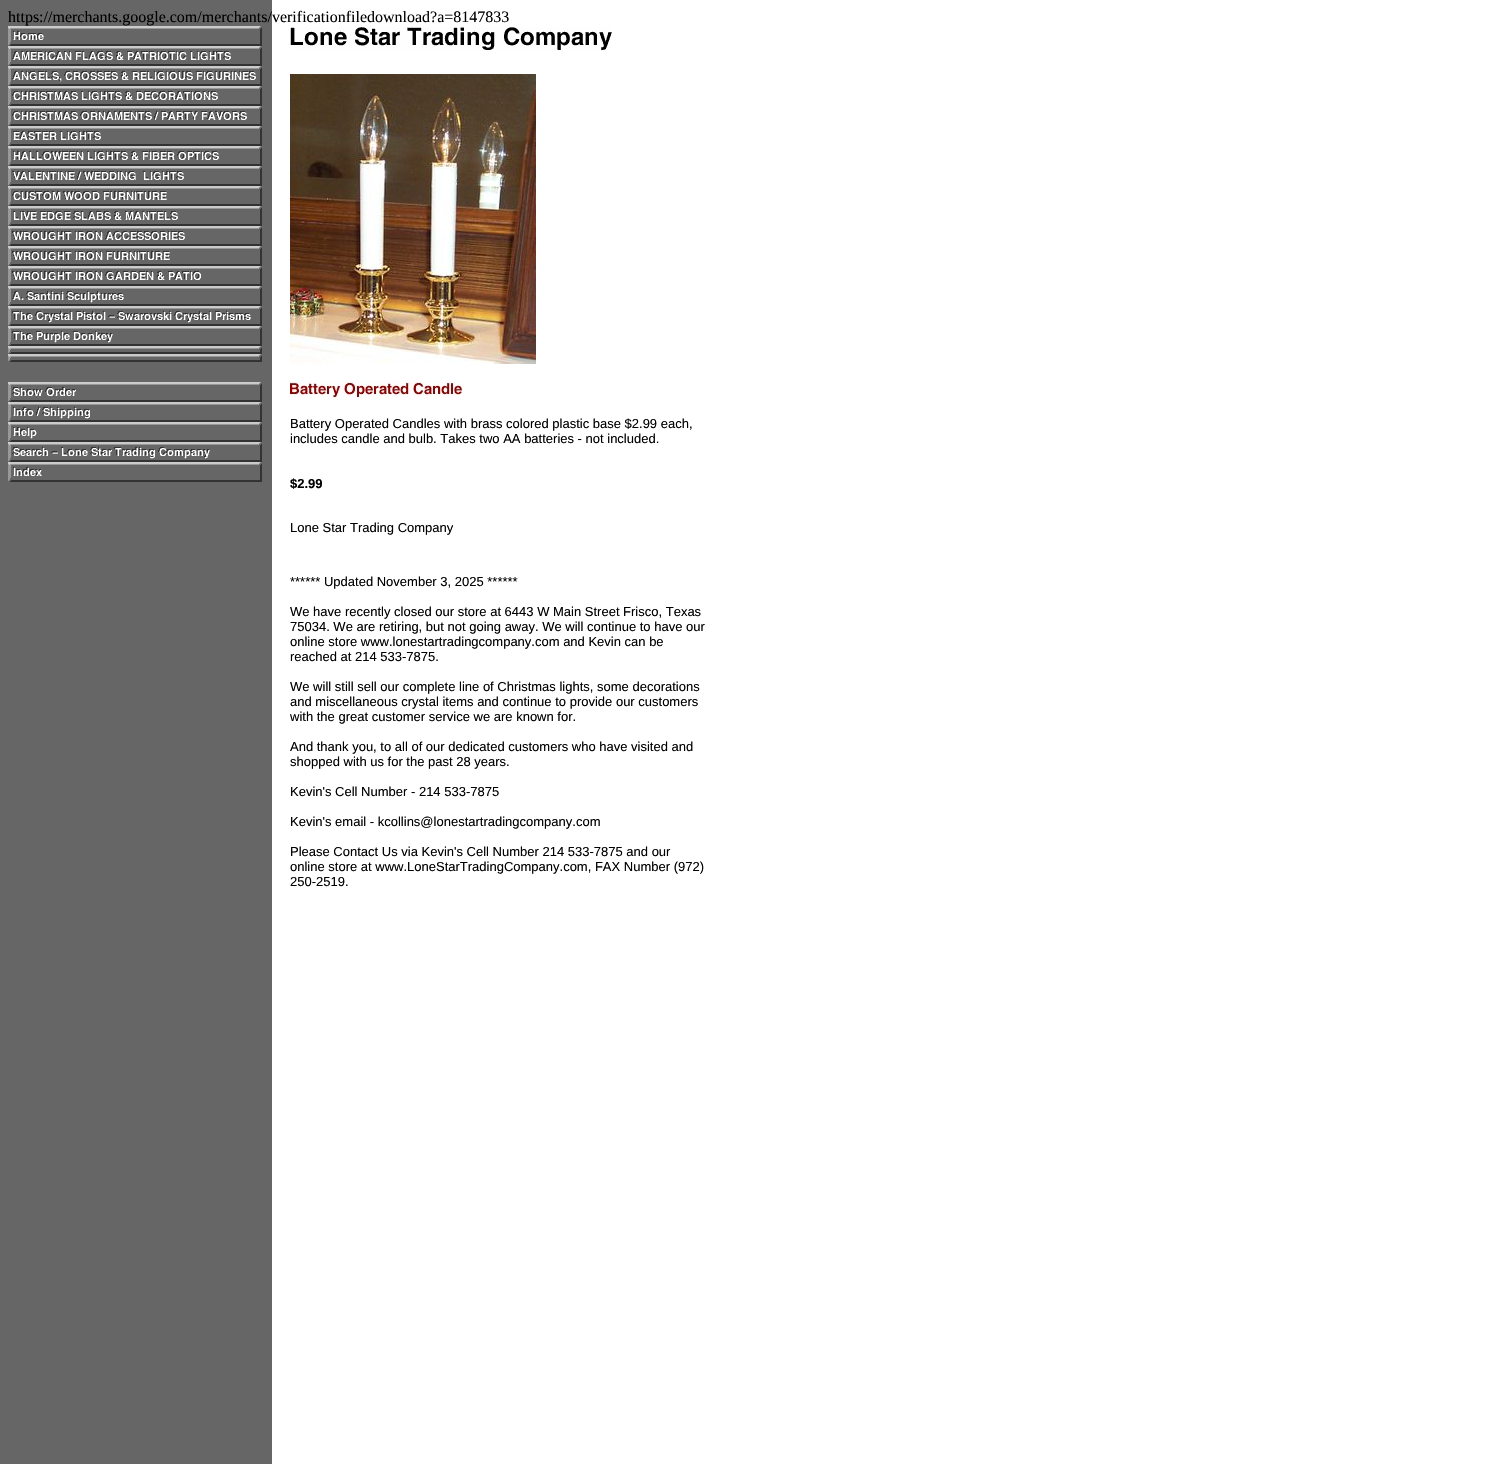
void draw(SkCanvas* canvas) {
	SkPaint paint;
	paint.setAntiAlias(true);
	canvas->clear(0xffffffff);
	paint.setColor(0xff666666);
	canvas->drawRect(SkRect::MakeXYWH(0, 0, 272, 1464), paint);
	SkFont f1(fontMgr->matchFamilyStyle("Liberation Serif", SkFontStyle::Normal()), 16);
	f1.setSubpixel(true);
	paint.setColor(0xff000000);
	canvas->drawString("https://merchants.google.com/merchants/verificationfiledownload?a=8147833", 8, 22, f1, paint);
	canvas->drawImageRect(SkImages::DeferredFromEncodedData(SkData::MakeFromFileName("img1.png")), SkRect::MakeXYWH(8, 26, 254, 456), SkSamplingOptions());
	canvas->drawImageRect(SkImages::DeferredFromEncodedData(SkData::MakeFromFileName("img2.png")), SkRect::MakeXYWH(290, 27, 322, 23), SkSamplingOptions());
	canvas->drawImageRect(SkImages::DeferredFromEncodedData(SkData::MakeFromFileName("img3.png")), SkRect::MakeXYWH(290, 74, 246, 290), SkSamplingOptions());
	canvas->drawImageRect(SkImages::DeferredFromEncodedData(SkData::MakeFromFileName("img4.png")), SkRect::MakeXYWH(290, 382, 173, 16), SkSamplingOptions());
	SkFont f2(fontMgr->matchFamilyStyle("Liberation Sans", SkFontStyle::Normal()), 13);
	f2.setSubpixel(true);
	canvas->drawString("Battery Operated Candles with brass colored plastic base $2.99 each,", 290, 428, f2, paint);
	canvas->drawString("includes candle and bulb. Takes two AA batteries - not included.", 290, 443, f2, paint);
	SkFont f3(fontMgr->matchFamilyStyle("Liberation Sans", SkFontStyle::Bold()), 13);
	f3.setSubpixel(true);
	canvas->drawString("$2.99", 290, 488, f3, paint);
	canvas->drawString("Lone Star Trading Company", 290, 532, f2, paint);
	canvas->drawString("****** Updated November 3, 2025 ******", 290, 586, f2, paint);
	canvas->drawString("We have recently closed our store at 6443 W Main Street Frisco, Texas", 290, 616, f2, paint);
	canvas->drawString("75034. We are retiring, but not going away. We will continue to have our", 290, 631, f2, paint);
	canvas->drawString("online store www.lonestartradingcompany.com and Kevin can be", 290, 646, f2, paint);
	canvas->drawString("reached at 214 533-7875.", 290, 661, f2, paint);
	canvas->drawString("We will still sell our complete line of Christmas lights, some decorations", 290, 691, f2, paint);
	canvas->drawString("and miscellaneous crystal items and continue to provide our customers", 290, 706, f2, paint);
	canvas->drawString("with the great customer service we are known for.", 290, 721, f2, paint);
	canvas->drawString("And thank you, to all of our dedicated customers who have visited and", 290, 751, f2, paint);
	canvas->drawString("shopped with us for the past 28 years.", 290, 766, f2, paint);
	canvas->drawString("Kevin's Cell Number - 214 533-7875", 290, 796, f2, paint);
	canvas->drawString("Kevin's email - kcollins@lonestartradingcompany.com", 290, 826, f2, paint);
	canvas->drawString("Please Contact Us via Kevin's Cell Number 214 533-7875 and our", 290, 856, f2, paint);
	canvas->drawString("online store at www.LoneStarTradingCompany.com, FAX Number (972)", 290, 871, f2, paint);
	canvas->drawString("250-2519.", 290, 886, f2, paint);
}
